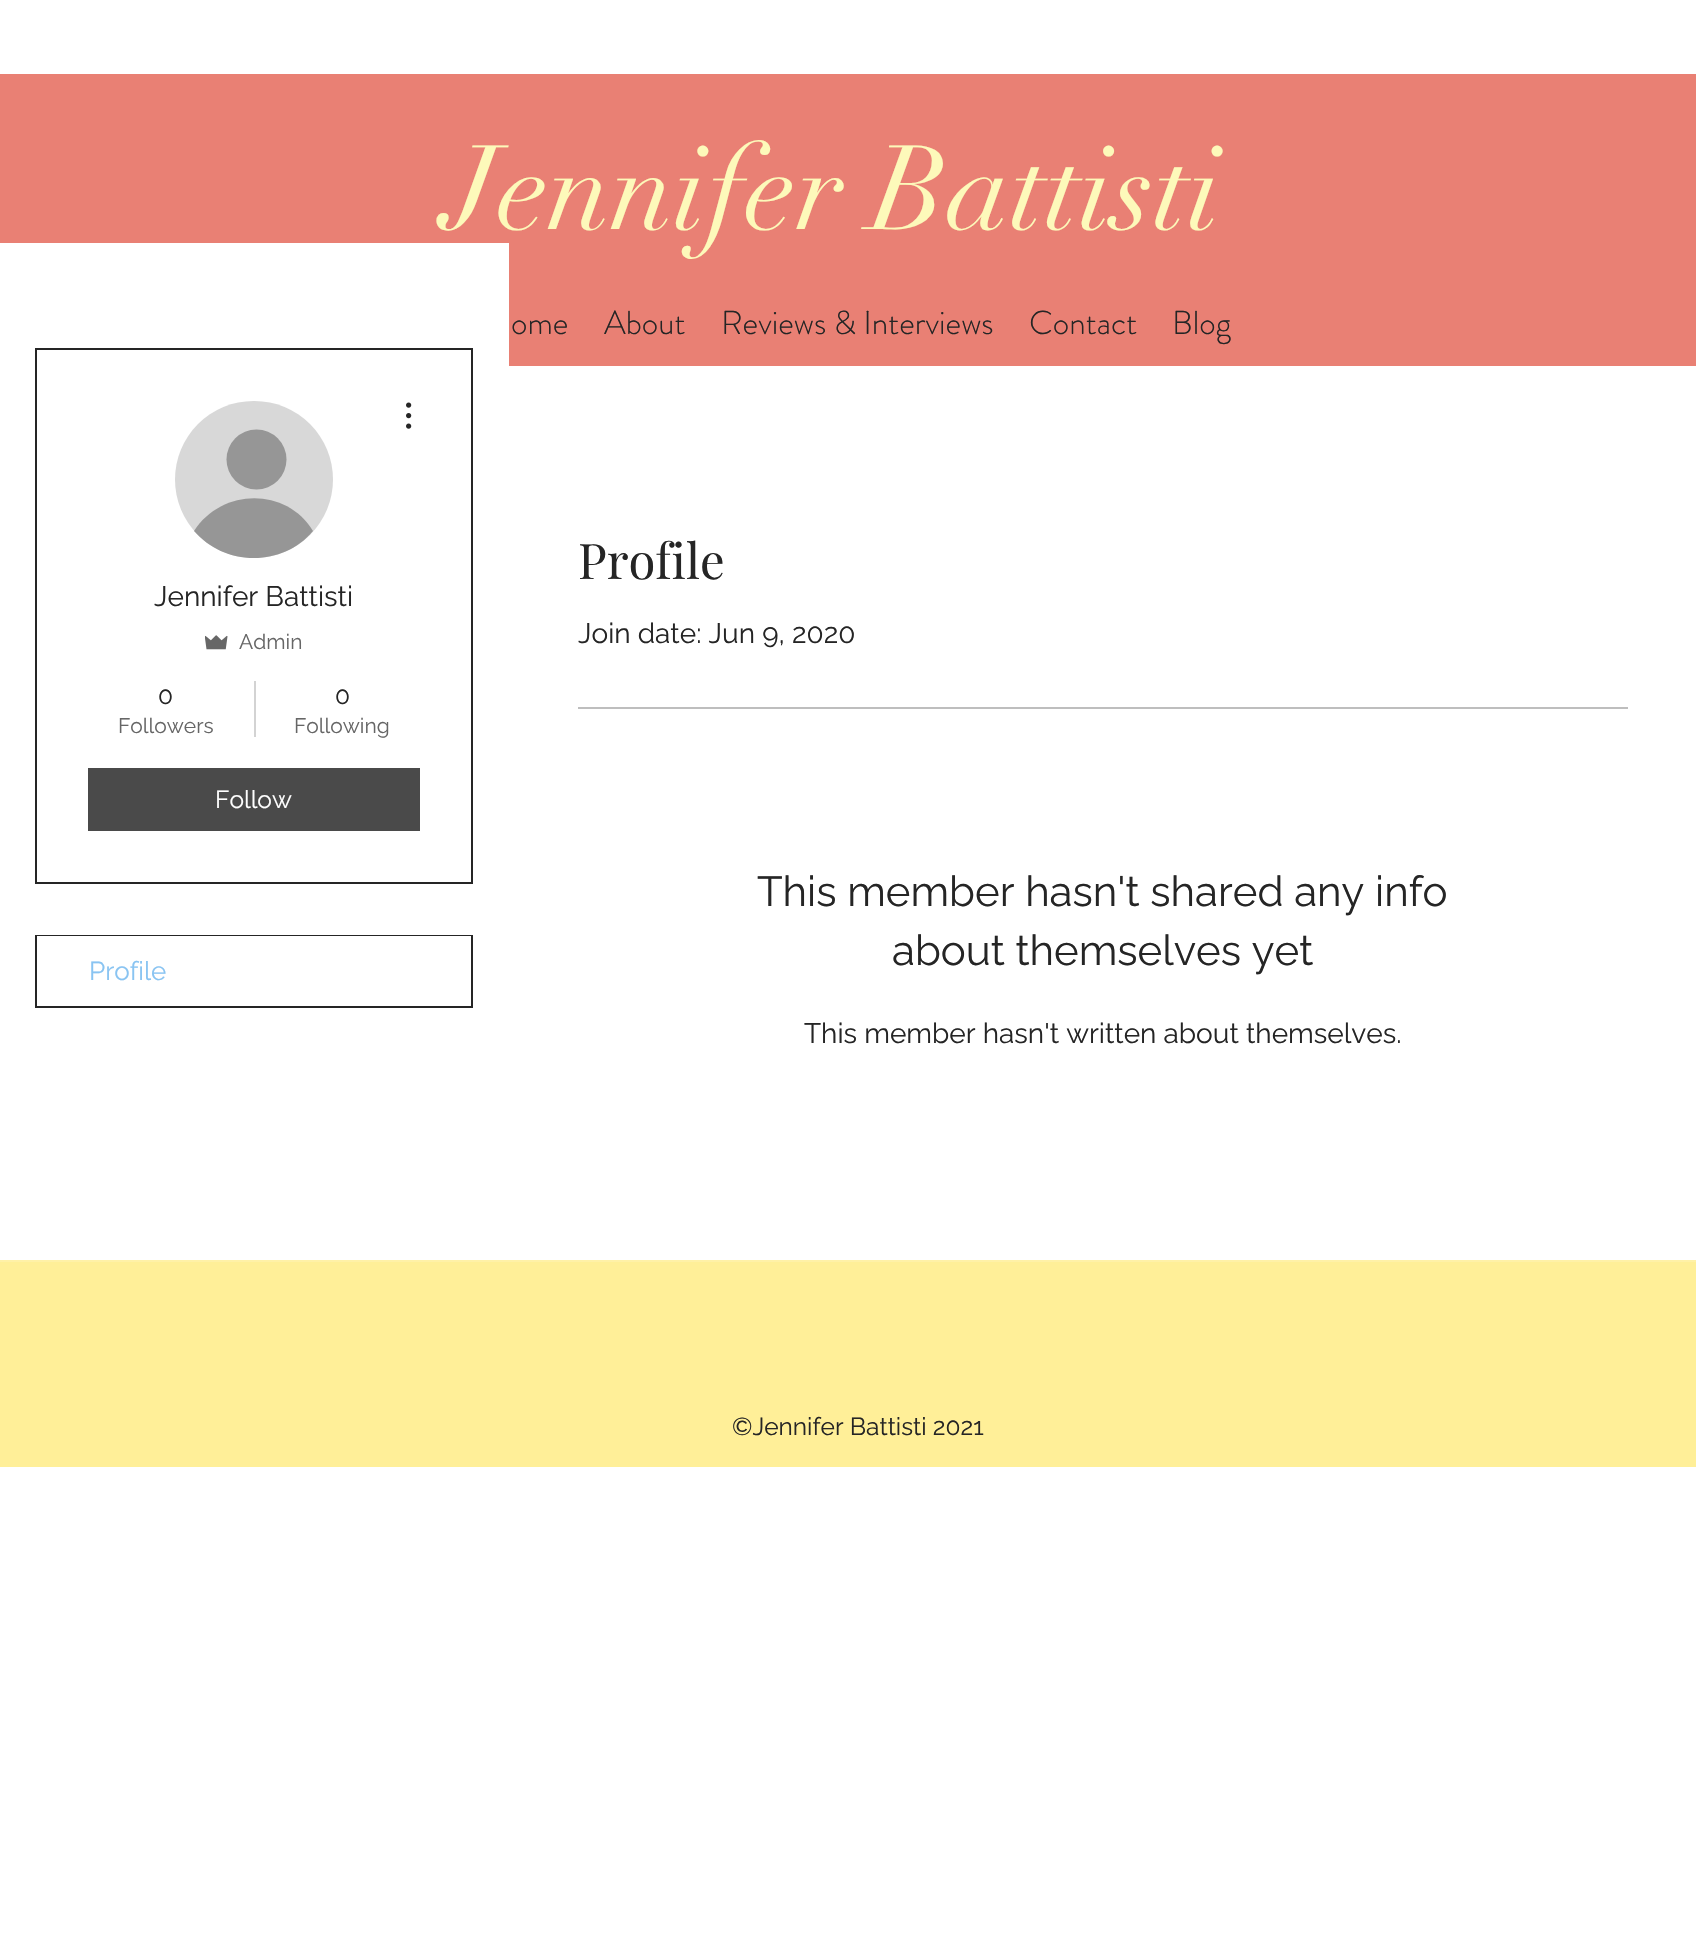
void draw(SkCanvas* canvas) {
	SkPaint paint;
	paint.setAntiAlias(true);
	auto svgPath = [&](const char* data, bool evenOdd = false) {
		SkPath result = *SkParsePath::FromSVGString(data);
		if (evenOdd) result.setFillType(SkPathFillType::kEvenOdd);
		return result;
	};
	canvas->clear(0xffffffff);
	paint.setColor(0xffe98074);
	canvas->drawRect(SkRect::MakeXYWH(0, 74, 1696, 292), paint);
	SkFont f1(fontMgr->matchFamilyStyle("didot", SkFontStyle::Normal()), 117.25);
	f1.setSubpixel(true);
	paint.setColor(0xfffdf9ba);
	canvas->drawString("Jennifer Battisti", 444, 229, f1, paint);
	SkFont f2(fontMgr->matchFamilyStyle("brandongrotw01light", SkFontStyle(300, SkFontStyle::kNormal_Width, SkFontStyle::kUpright_Slant)), 33.25);
	f2.setSubpixel(true);
	paint.setColor(0xff252525);
	canvas->drawString("ome", 511, 334, f2, paint);
	canvas->drawString("About", 604, 334, f2, paint);
	canvas->drawString("Reviews & Interviews", 721, 334, f2, paint);
	canvas->drawString("Contact", 1029, 334, f2, paint);
	canvas->drawString("Blog", 1172, 334, f2, paint);
	paint.setColor(0xffffffff);
	canvas->drawRect(SkRect::MakeXYWH(0, 243, 509, 123), paint);
	paint.setStroke(true);
	paint.setStrokeWidth(2);
	paint.setColor(0xff252525);
	canvas->drawRect(SkRect::MakeXYWH(36, 349, 436, 534), paint);
	paint.setStroke(false);
	paint.setColor(0xffd8d8d8);
	canvas->drawRoundRect(SkRect::MakeXYWH(175, 401, 158, 157), 78.5, 78.5, paint);
	paint.setColor(0xff969696);
	canvas->drawCircle(256.5, 459.5, 30, paint);
	canvas->drawPath(svgPath("M254 558C276 558 298 549 313 531C286 487 222 488 194 531C209 548 230 558 254 558Z"), paint);
	canvas->drawImageRect(SkImages::DeferredFromEncodedData(SkData::MakeFromFileName("img1.png")), SkRect::MakeXYWH(406, 402, 6, 27), SkSamplingOptions());
	SkFont f3(fontMgr->matchFamilyStyle("Raleway", SkFontStyle::Normal()), 28);
	f3.setSubpixel(true);
	paint.setColor(0xff252525);
	canvas->drawString("Jennifer Battisti", 154, 606, f3, paint);
	canvas->drawImageRect(SkImages::DeferredFromEncodedData(SkData::MakeFromFileName("img2.png")), SkRect::MakeXYWH(205, 635, 23, 15), SkSamplingOptions());
	SkFont f4(fontMgr->matchFamilyStyle("Raleway", SkFontStyle::Normal()), 21);
	f4.setSubpixel(true);
	paint.setColor(0xff666666);
	canvas->drawString("Admin", 239, 649, f4, paint);
	SkFont f5(fontMgr->matchFamilyStyle("Raleway", SkFontStyle::Normal()), 24.5);
	f5.setSubpixel(true);
	paint.setColor(0xff252525);
	canvas->drawString("0", 158, 704, f5, paint);
	paint.setColor(0xff666666);
	canvas->drawString("Followers", 118, 733, f4, paint);
	paint.setColor(0xffd3d3d3);
	canvas->drawRect(SkRect::MakeXYWH(254, 681, 2, 56), paint);
	paint.setColor(0xff252525);
	canvas->drawString("0", 335, 704, f5, paint);
	paint.setColor(0xff666666);
	canvas->drawString("Following", 294, 733, f4, paint);
	paint.setColor(0xff4a4a4a);
	canvas->drawRect(SkRect::MakeXYWH(88, 768, 332, 63), paint);
	paint.setColor(0xffffffff);
	canvas->drawString("Follow", 215, 808, f5, paint);
	paint.setStroke(true);
	paint.setColor(0xff252525);
	canvas->drawRect(SkRect::MakeXYWH(36, 936, 436, 71), paint);
	paint.setStroke(false);
	paint.setColor(0xffffffff);
	canvas->drawRect(SkRect::MakeXYWH(37, 936, 434, 1), paint);
	SkFont f6(fontMgr->matchFamilyStyle("Raleway", SkFontStyle::Normal()), 26);
	f6.setSubpixel(true);
	paint.setColor(0xff89c4f2);
	canvas->drawString("Profile", 89, 980, f6, paint);
	SkFont f7(fontMgr->matchFamilyStyle("Playfair Display", SkFontStyle::Normal()), 49);
	f7.setSubpixel(true);
	paint.setColor(0xff252525);
	canvas->drawString("Profile", 578, 579, f7, paint);
	canvas->drawString("Join date: Jun 9, 2020", 578, 643, f3, paint);
	paint.setColor(0xffbebebe);
	canvas->drawRect(SkRect::MakeXYWH(578, 707, 1050, 2), paint);
	SkFont f8(fontMgr->matchFamilyStyle("Raleway", SkFontStyle::Normal()), 42);
	f8.setSubpixel(true);
	paint.setColor(0xff252525);
	canvas->drawString("This member hasn't shared any info", 757, 906, f8, paint);
	canvas->drawString("about themselves yet", 892, 965, f8, paint);
	canvas->drawString("This member hasn't written about themselves.", 804, 1043, f3, paint);
	paint.setColor(0xffffef98);
	canvas->drawRect(SkRect::MakeXYWH(0, 1262, 1696, 205), paint);
	paint.setColor(0xfffff1a7);
	canvas->drawRect(SkRect::MakeXYWH(0, 1260, 1696, 2), paint);
	paint.setColor(0xff252525);
	canvas->drawString("©Jennifer Battisti 2021", 732, 1435, f5, paint);
}
